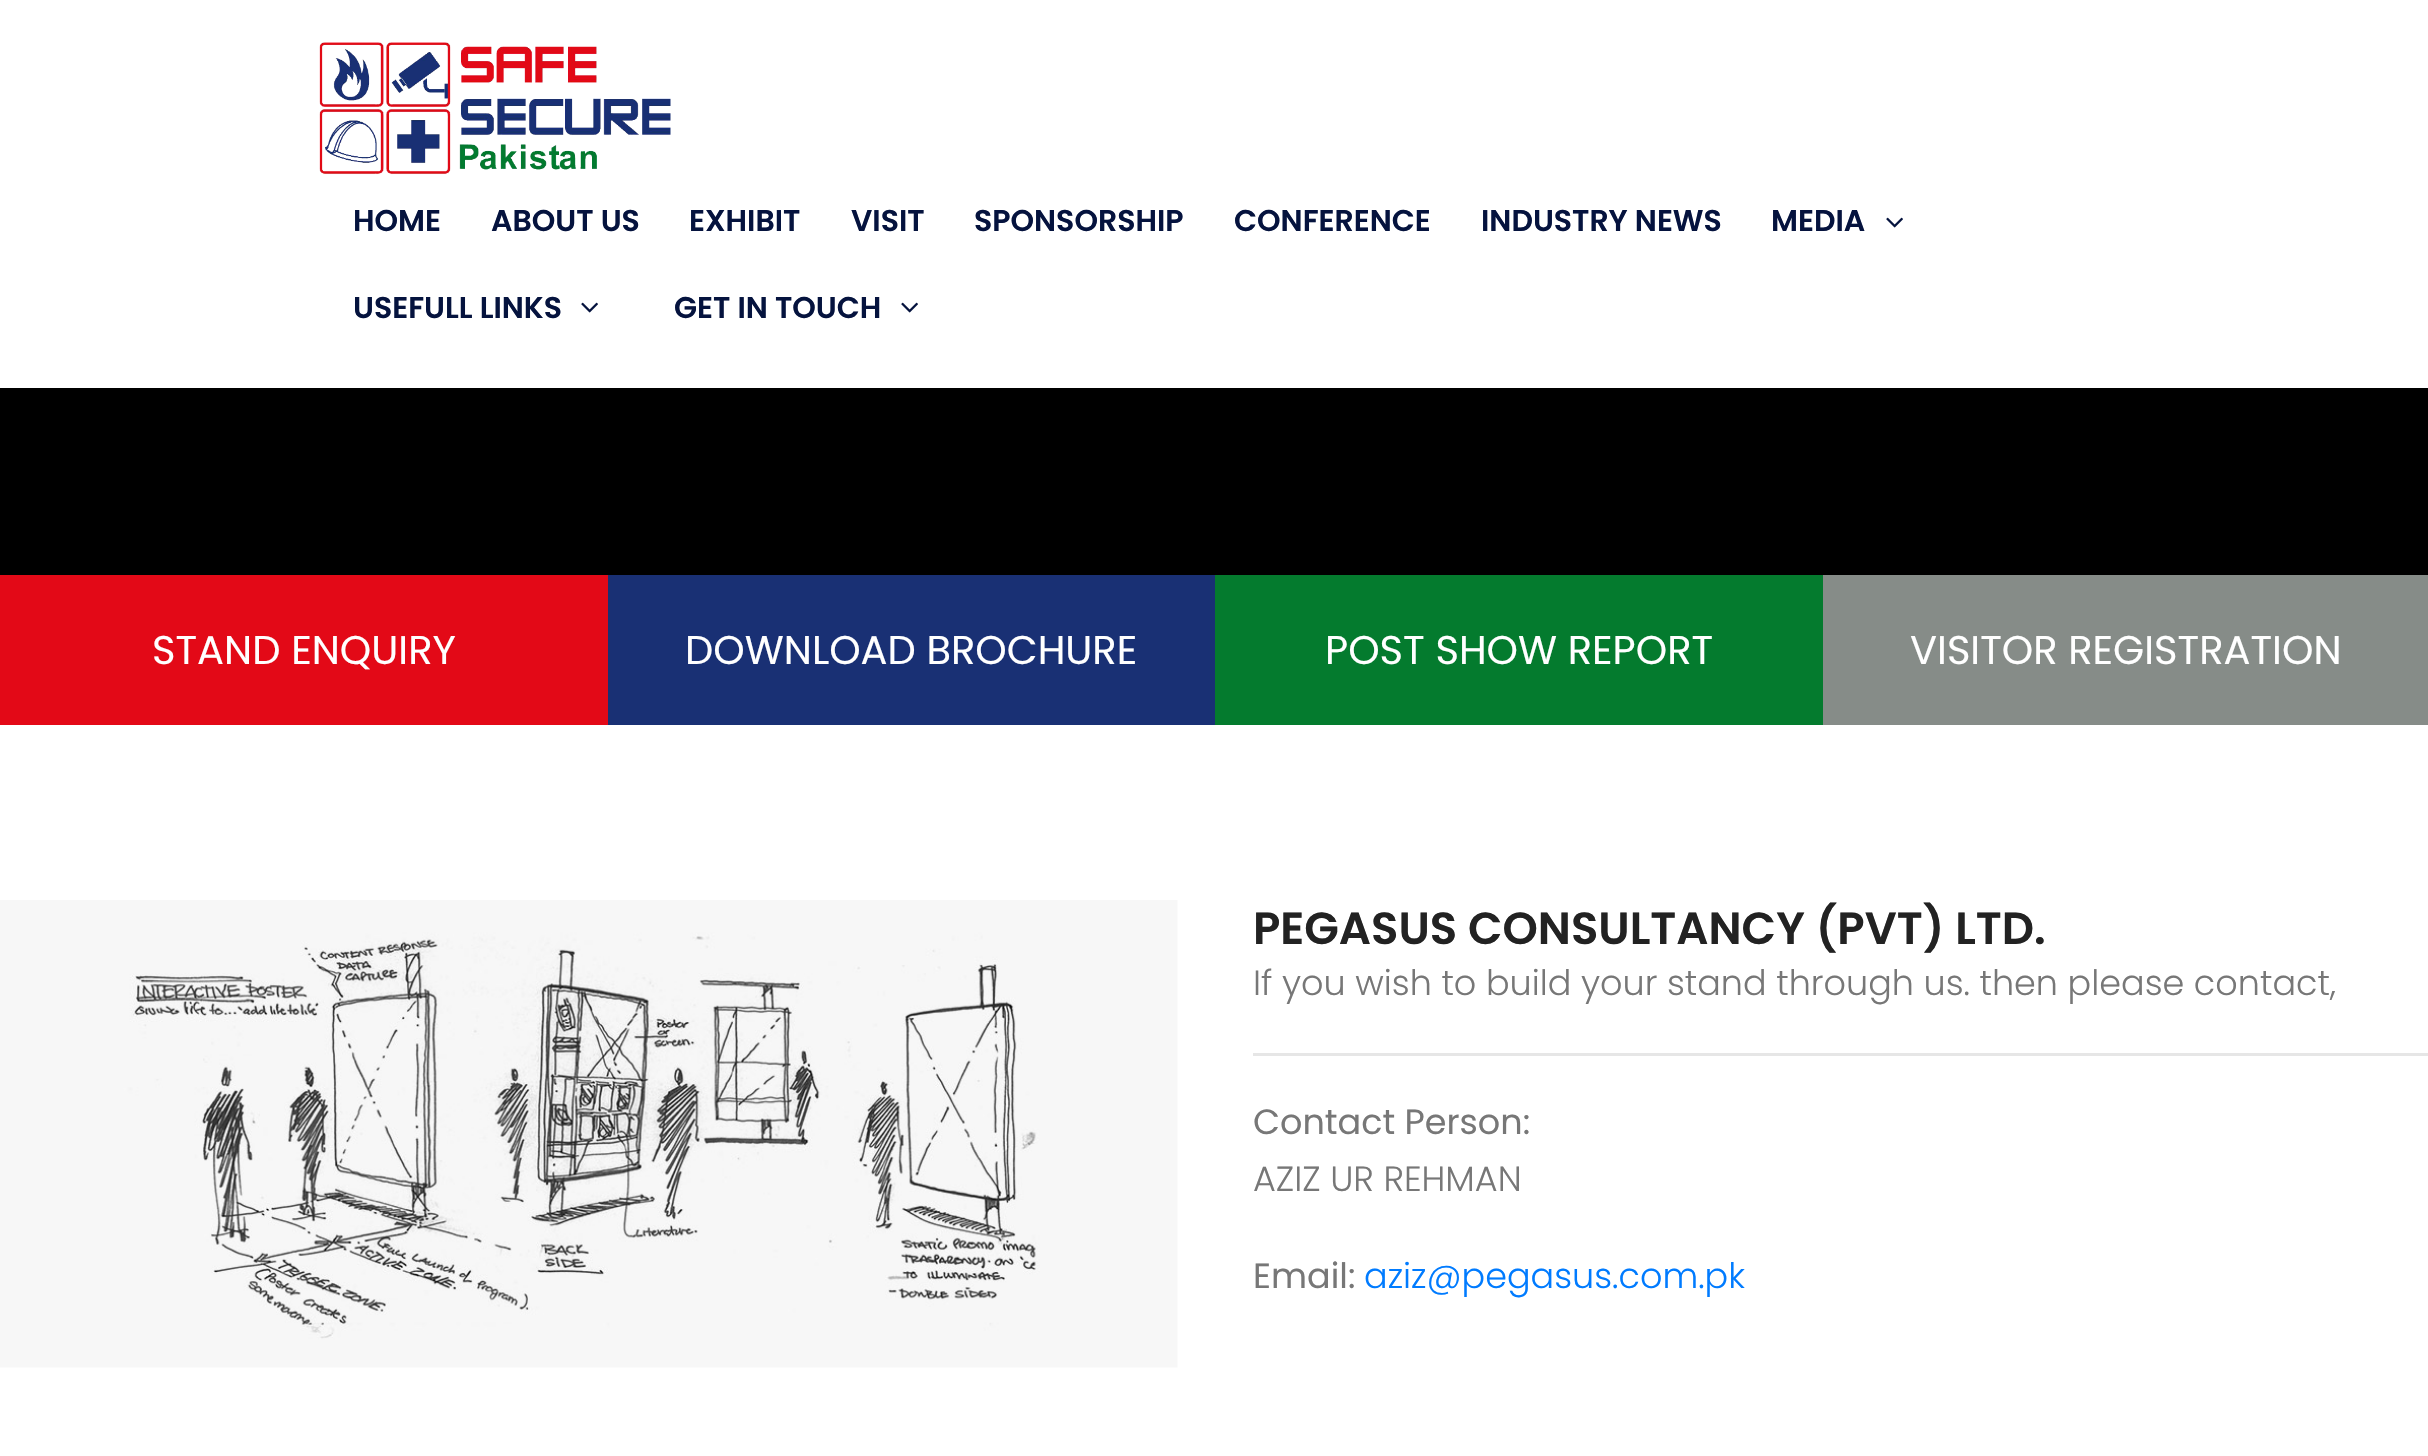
void draw(SkCanvas* canvas) {
	SkPaint paint;
	paint.setAntiAlias(true);
	canvas->clear(0xffffffff);
	canvas->drawImageRect(SkImages::DeferredFromEncodedData(SkData::MakeFromFileName("img1.png")), SkRect::MakeXYWH(319, 42, 352, 133), SkSamplingOptions());
	SkFont f1(fontMgr->matchFamilyStyle("Poppins", SkFontStyle(600, SkFontStyle::kNormal_Width, SkFontStyle::kUpright_Slant)), 30);
	f1.setSubpixel(true);
	paint.setColor(0xff05133e);
	canvas->drawString("HOME", 353, 231, f1, paint);
	canvas->drawString("ABOUT US", 491, 231, f1, paint);
	canvas->drawString("EXHIBIT", 689, 231, f1, paint);
	canvas->drawString("VISIT", 851, 231, f1, paint);
	canvas->drawString("SPONSORSHIP", 974, 231, f1, paint);
	canvas->drawString("CONFERENCE", 1234, 231, f1, paint);
	canvas->drawString("INDUSTRY NEWS", 1481, 231, f1, paint);
	canvas->drawString("MEDIA", 1771, 231, f1, paint);
	canvas->drawImageRect(SkImages::DeferredFromEncodedData(SkData::MakeFromFileName("img2.png")), SkRect::MakeXYWH(1886, 217, 17, 11), SkSamplingOptions());
	canvas->drawString("USEFULL LINKS", 353, 318, f1, paint);
	canvas->drawImageRect(SkImages::DeferredFromEncodedData(SkData::MakeFromFileName("img2.png")), SkRect::MakeXYWH(581, 302, 17, 11), SkSamplingOptions());
	canvas->drawString("GET IN TOUCH", 674, 318, f1, paint);
	canvas->drawImageRect(SkImages::DeferredFromEncodedData(SkData::MakeFromFileName("img2.png")), SkRect::MakeXYWH(901, 302, 17, 11), SkSamplingOptions());
	paint.setColor(0xff000000);
	canvas->drawRect(SkRect::MakeXYWH(0, 388, 2428, 187), paint);
	paint.setColor(0xffe30917);
	canvas->drawRect(SkRect::MakeXYWH(0, 575, 608, 150), paint);
	SkFont f2(fontMgr->matchFamilyStyle("Poppins", SkFontStyle::Normal()), 40);
	f2.setSubpixel(true);
	paint.setColor(0xffffffff);
	canvas->drawString("STAND ENQUIRY", 152, 664, f2, paint);
	paint.setColor(0xff193074);
	canvas->drawRect(SkRect::MakeXYWH(608, 575, 607, 150), paint);
	paint.setColor(0xffffffff);
	canvas->drawString("DOWNLOAD BROCHURE", 685, 664, f2, paint);
	paint.setColor(0xff047b2e);
	canvas->drawRect(SkRect::MakeXYWH(1215, 575, 608, 150), paint);
	paint.setColor(0xffffffff);
	canvas->drawString("POST SHOW REPORT", 1325, 664, f2, paint);
	paint.setColor(0xff868c88);
	canvas->drawRect(SkRect::MakeXYWH(1823, 575, 605, 150), paint);
	paint.setColor(0xffffffff);
	canvas->drawString("VISITOR REGISTRATION", 1910, 664, f2, paint);
	canvas->drawImageRect(SkImages::DeferredFromEncodedData(SkData::MakeFromFileName("img3.png")), SkRect::MakeXYWH(0, 900, 1178, 468), SkSamplingOptions());
	SkFont f3(fontMgr->matchFamilyStyle("Poppins", SkFontStyle(600, SkFontStyle::kNormal_Width, SkFontStyle::kUpright_Slant)), 45);
	f3.setSubpixel(true);
	paint.setColor(0xff222222);
	canvas->drawString("PEGASUS CONSULTANCY (PVT) LTD.", 1253, 944, f3, paint);
	SkFont f4(fontMgr->matchFamilyStyle("Poppins", SkFontStyle(300, SkFontStyle::kNormal_Width, SkFontStyle::kUpright_Slant)), 35);
	f4.setSubpixel(true);
	paint.setColor(0xff777777);
	canvas->drawString("If you wish to build your stand through us. then please contact,", 1253, 995, f4, paint);
	paint.setColor(0xffe6e6e6);
	canvas->drawRect(SkRect::MakeXYWH(1253, 1053, 1175, 3), paint);
	SkFont f5(fontMgr->matchFamilyStyle("Poppins", SkFontStyle::Normal()), 35);
	f5.setSubpixel(true);
	paint.setColor(0xff777777);
	canvas->drawString("Contact Person:", 1253, 1134, f5, paint);
	canvas->drawString("AZIZ UR REHMAN", 1253, 1191, f4, paint);
	canvas->drawString("Email:", 1253, 1288, f5, paint);
	paint.setColor(0xff007bff);
	canvas->drawString("aziz@pegasus.com.pk", 1364, 1288, f4, paint);
}
